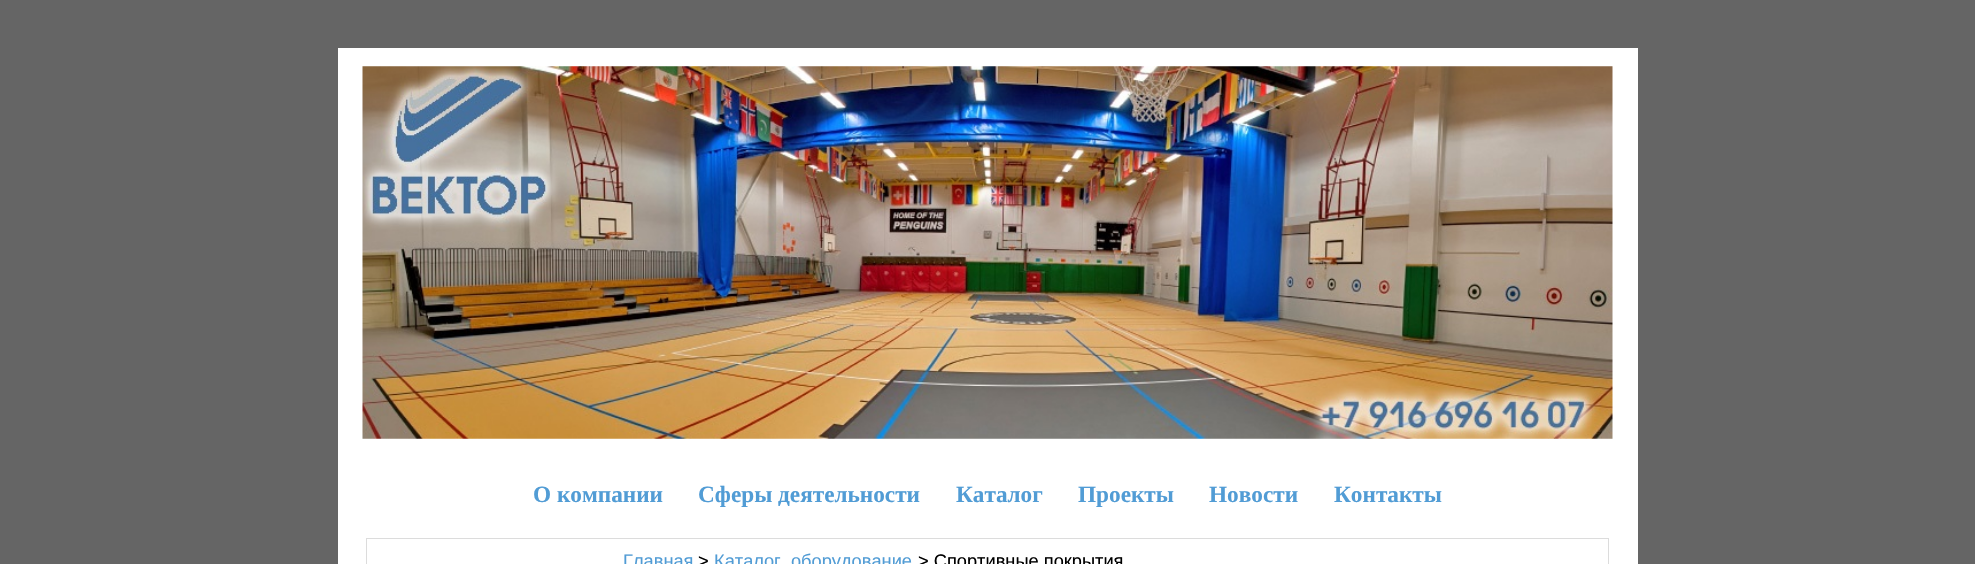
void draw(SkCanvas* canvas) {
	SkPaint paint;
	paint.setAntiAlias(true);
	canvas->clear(0xff656565);
	paint.setColor(0xffffffff);
	canvas->drawRect(SkRect::MakeXYWH(338, 48, 1300, 516), paint);
	canvas->drawImageRect(SkImages::DeferredFromEncodedData(SkData::MakeFromFileName("img1.png")), SkRect::MakeXYWH(362, 66, 1251, 373), SkSamplingOptions());
	SkFont f1(fontMgr->matchFamilyStyle("Liberation Serif", SkFontStyle::Bold()), 23.25);
	f1.setSubpixel(true);
	paint.setColor(0xff519cd5);
	canvas->drawString("О компании", 533, 502, f1, paint);
	canvas->drawString("Cферы деятельности", 698, 502, f1, paint);
	canvas->drawString("Каталог", 956, 502, f1, paint);
	canvas->drawString("Проекты", 1078, 502, f1, paint);
	canvas->drawString("Новости", 1209, 502, f1, paint);
	canvas->drawString("Контакты", 1334, 502, f1, paint);
	paint.setStroke(true);
	paint.setStrokeWidth(1);
	paint.setColor(0xffdcdcdc);
	canvas->drawRect(SkRect::MakeXYWH(366.5, 538.5, 1242, 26), paint);
	SkFont f2(fontMgr->matchFamilyStyle("Liberation Sans", SkFontStyle::Normal()), 18.25);
	f2.setSubpixel(true);
	paint.setStroke(false);
	paint.setColor(0xff519cd5);
	canvas->drawString("Главная", 623, 567, f2, paint);
	paint.setColor(0xff000000);
	canvas->drawString(">", 698, 567, f2, paint);
	paint.setColor(0xff519cd5);
	canvas->drawString("Каталог, оборудование", 714, 567, f2, paint);
	paint.setColor(0xff000000);
	canvas->drawString("> Спортивные покрытия", 918, 567, f2, paint);
}
